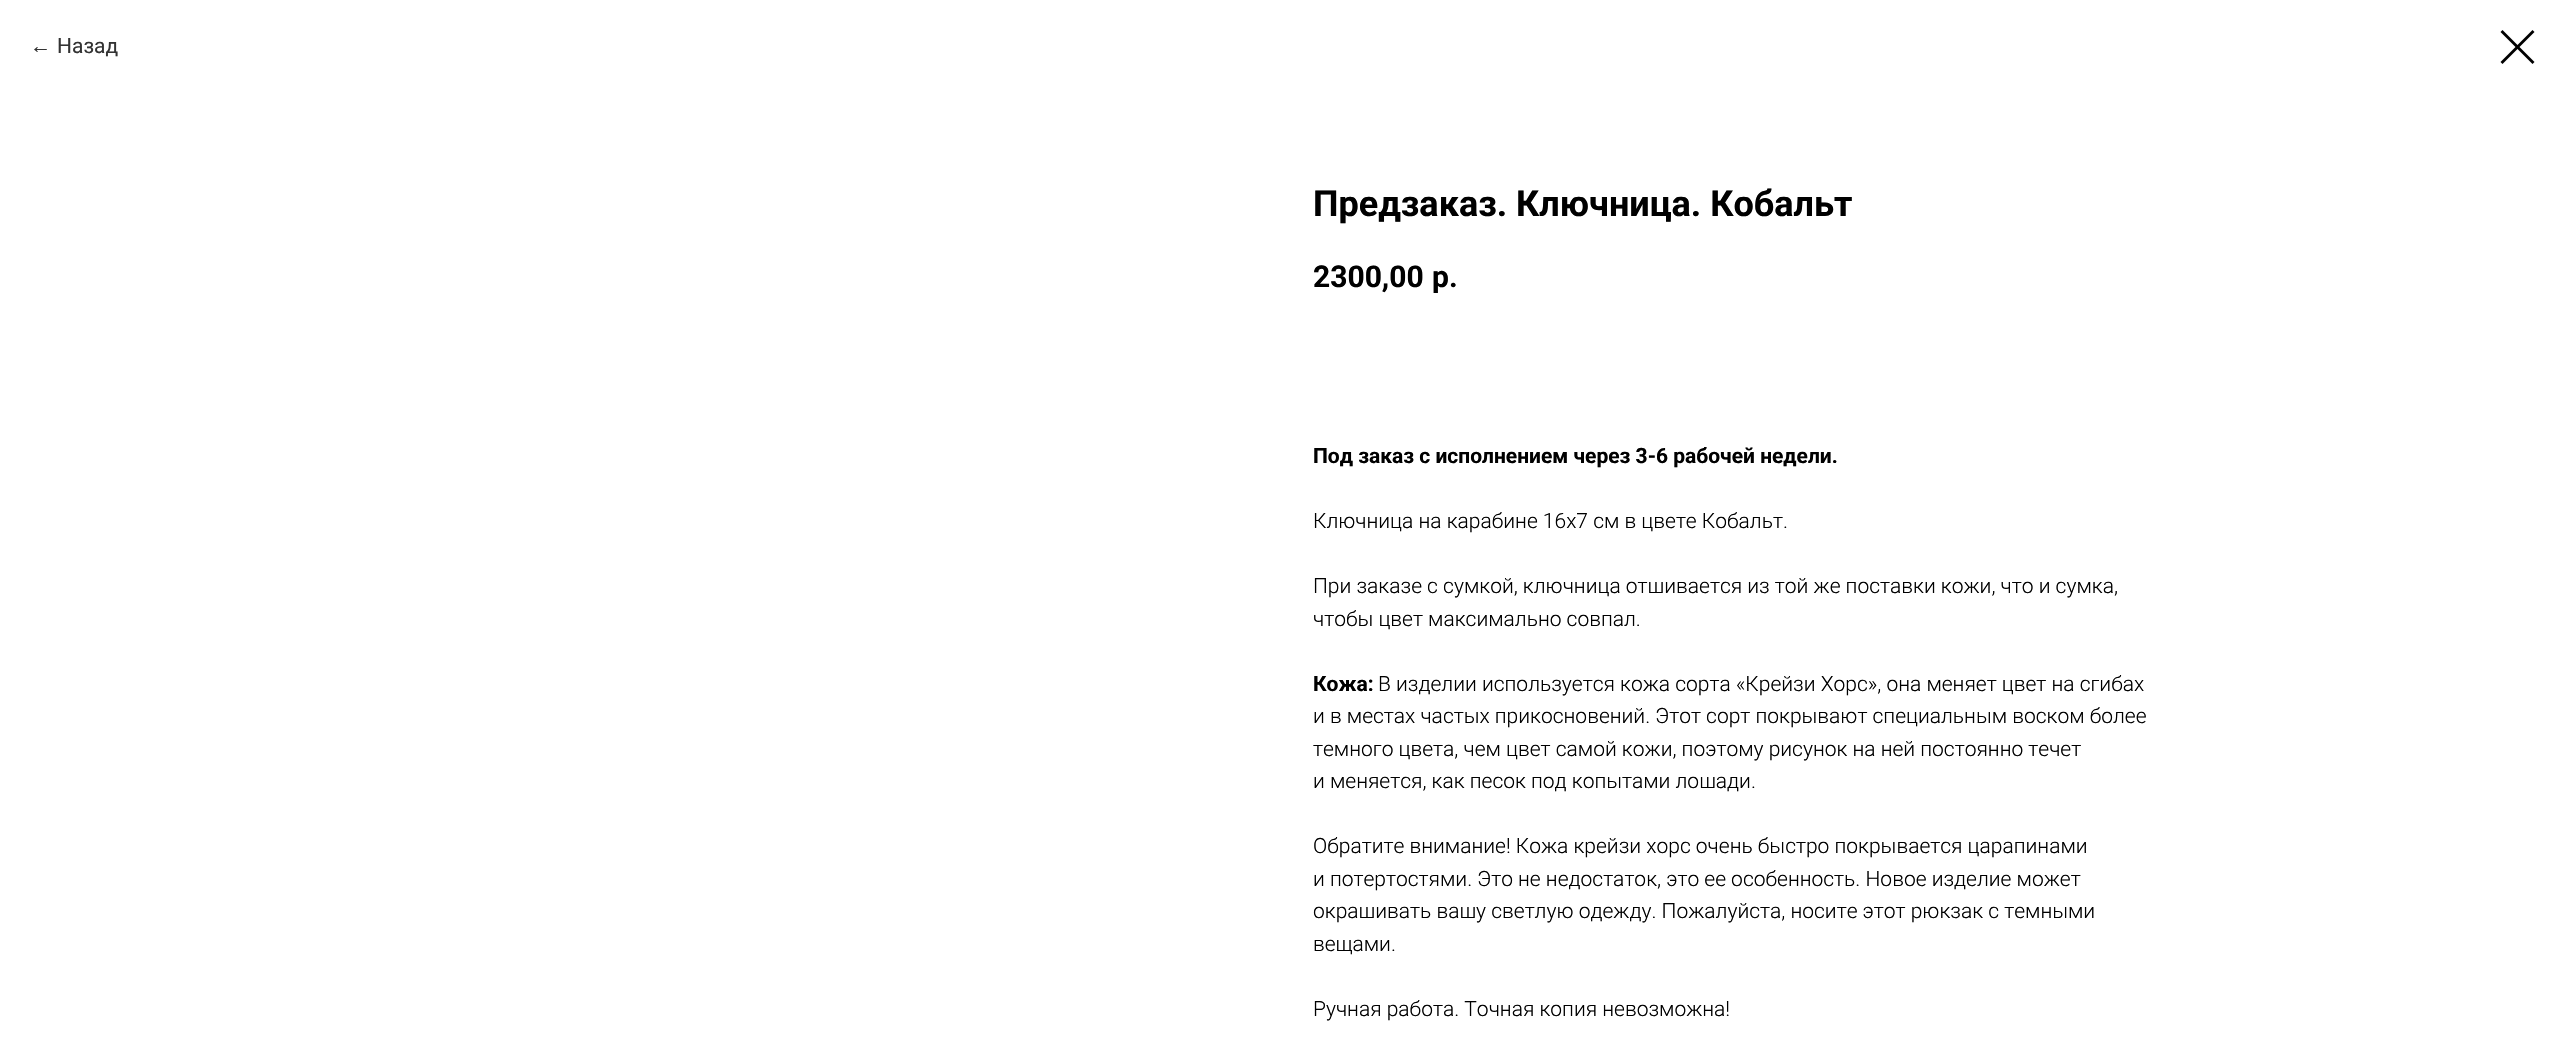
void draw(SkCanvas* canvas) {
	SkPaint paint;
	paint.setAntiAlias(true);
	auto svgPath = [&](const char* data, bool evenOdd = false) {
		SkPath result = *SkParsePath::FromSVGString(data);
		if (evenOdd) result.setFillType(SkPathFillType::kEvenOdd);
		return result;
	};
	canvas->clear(0xffffffff);
	SkFont f1(fontMgr->matchFamilyStyle("Liberation Sans", SkFontStyle::Normal()), 21);
	f1.setSubpixel(true);
	paint.setColor(0xff333333);
	canvas->drawString("←", 30, 53, f1, paint);
	SkFont f2(fontMgr->matchFamilyStyle("Roboto", SkFontStyle::Normal()), 21);
	f2.setSubpixel(true);
	canvas->drawString("Назад", 57, 53, f2, paint);
	paint.setColor(0xff000000);
	canvas->drawPath(svgPath("M2500.5 32L2502.5 30L2534.5 62L2532.5 64Z", true), paint);
	canvas->drawPath(svgPath("M2532.5 30L2534.5 32L2502.5 64L2500.5 62Z", true), paint);
	SkFont f3(fontMgr->matchFamilyStyle("Roboto", SkFontStyle::Bold()), 36);
	f3.setSubpixel(true);
	canvas->drawString("Предзаказ. Ключница. Кобальт", 1313, 216, f3, paint);
	SkFont f4(fontMgr->matchFamilyStyle("Roboto", SkFontStyle::Bold()), 30);
	f4.setSubpixel(true);
	canvas->drawString("2300,00", 1313, 287, f4, paint);
	canvas->drawString("р.", 1432, 287, f4, paint);
	SkFont f5(fontMgr->matchFamilyStyle("Roboto", SkFontStyle::Bold()), 21);
	f5.setSubpixel(true);
	canvas->drawString("Под заказ с исполнением через 3-6 рабочей недели.", 1313, 463, f5, paint);
	SkFont f6(fontMgr->matchFamilyStyle("Roboto", SkFontStyle(300, SkFontStyle::kNormal_Width, SkFontStyle::kUpright_Slant)), 21);
	f6.setSubpixel(true);
	canvas->drawString("Ключница на карабине 16х7 см в цвете Кобальт.", 1313, 528, f6, paint);
	canvas->drawString("При заказе с сумкой, ключница отшивается из той же поставки кожи, что и сумка,", 1313, 593, f6, paint);
	canvas->drawString("чтобы цвет максимально совпал.", 1313, 626, f6, paint);
	canvas->drawString("Кожа:", 1313, 691, f5, paint);
	canvas->drawString("В изделии используется кожа сорта «Крейзи Хорс», она меняет цвет на сгибах", 1378, 691, f6, paint);
	canvas->drawString("и в местах частых прикосновений. Этот сорт покрывают специальным воском более", 1313, 723, f6, paint);
	canvas->drawString("темного цвета, чем цвет самой кожи, поэтому рисунок на ней постоянно течет", 1313, 756, f6, paint);
	canvas->drawString("и меняется, как песок под копытами лошади.", 1313, 788, f6, paint);
	canvas->drawString("Обратите внимание! Кожа крейзи хорс очень быстро покрывается царапинами", 1313, 853, f6, paint);
	canvas->drawString("и потертостями. Это не недостаток, это ее особенность. Новое изделие может", 1313, 886, f6, paint);
	canvas->drawString("окрашивать вашу светлую одежду. Пожалуйста, носите этот рюкзак с темными", 1313, 918, f6, paint);
	canvas->drawString("вещами.", 1313, 951, f6, paint);
	canvas->drawString("Ручная работа. Точная копия невозможна!", 1313, 1016, f6, paint);
}
